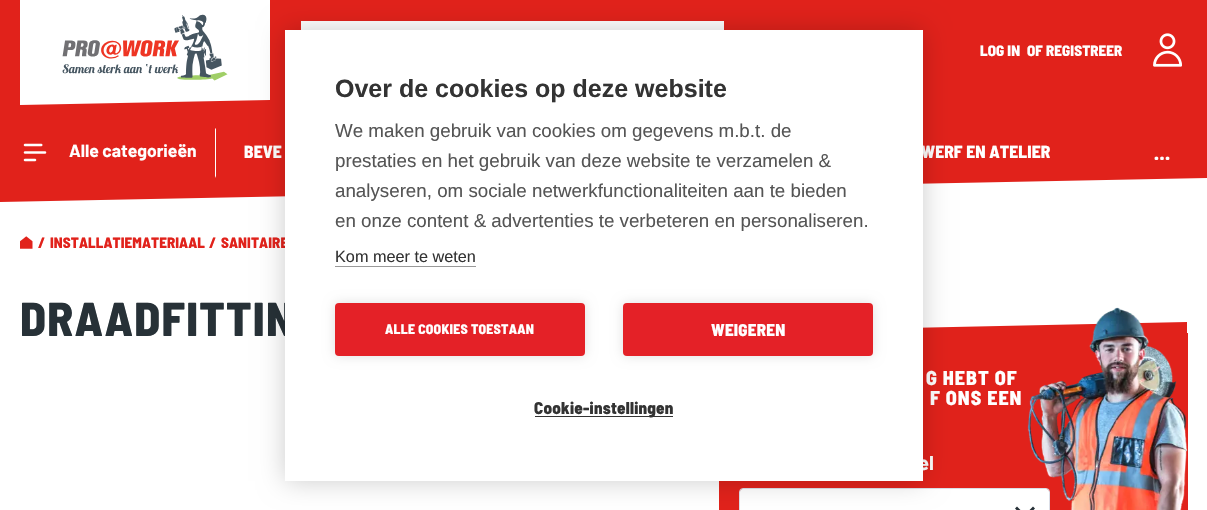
void draw(SkCanvas* canvas) {
	SkPaint paint;
	paint.setAntiAlias(true);
	auto spacedText = [&](const char* s, float x, float y, const SkFont& font, const SkPaint& ink, float letter, float word) {
		std::vector<SkGlyphID> glyphs(font.countText(s, strlen(s), SkTextEncoding::kUTF8));
		std::vector<float> xs(glyphs.size());
		font.textToGlyphs(s, strlen(s), SkTextEncoding::kUTF8, glyphs);
		font.getXPos(glyphs, xs, x);
		float extra = 0;
		for (size_t i = 0; i < glyphs.size(); i++) {
			xs[i] += extra;
			extra += letter + word * (glyphs[i] == font.unicharToGlyph(' '));
		}
		canvas->drawTextBlob(SkTextBlob::MakeFromPosHGlyphs(glyphs, xs, y, font), 0, 0, ink);
	};
	auto svgPath = [&](const char* data, bool evenOdd = false) {
		SkPath result = *SkParsePath::FromSVGString(data);
		if (evenOdd) result.setFillType(SkPathFillType::kEvenOdd);
		return result;
	};
	canvas->clear(0xffffffff);
	paint.setColor(0xffe1221b);
	canvas->drawPath(svgPath("M0 0V202L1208 178V0Z"), paint);
	paint.setColor(0xffffffff);
	canvas->drawRect(SkRect::MakeXYWH(20, 0, 250, 5), paint);
	canvas->drawPath(svgPath("M20 5L270 0V100L20 105Z"), paint);
	canvas->drawImageRect(SkImages::DeferredFromEncodedData(SkData::MakeFromFileName("img1.png")), SkRect::MakeXYWH(62, 14, 166, 67), SkSamplingOptions());
	canvas->drawRect(SkRect::MakeXYWH(301, 21, 423, 9), paint);
	SkFont f1(fontMgr->matchFamilyStyle("Barlow Semi Condensed", SkFontStyle(800, SkFontStyle::kNormal_Width, SkFontStyle::kUpright_Slant)), 15);
	f1.setSubpixel(true);
	spacedText("LOG IN", 980, 56, f1, paint, 0.1, 0);
	spacedText("OF", 1027, 56, f1, paint, 0.1, 0);
	spacedText("REGISTREER", 1046, 56, f1, paint, 0.1, 0);
	canvas->drawImageRect(SkImages::DeferredFromEncodedData(SkData::MakeFromFileName("img2.png")), SkRect::MakeXYWH(1153, 33, 29, 34), SkSamplingOptions());
	canvas->drawImageRect(SkImages::DeferredFromEncodedData(SkData::MakeFromFileName("img3.png")), SkRect::MakeXYWH(23, 143, 24, 19), SkSamplingOptions());
	SkFont f2(fontMgr->matchFamilyStyle("Barlow", SkFontStyle::Bold()), 17.5);
	f2.setSubpixel(true);
	canvas->drawString("Alle categorieën", 69, 157, f2, paint);
	canvas->drawPath(svgPath("M216 128V178L215 176V129Z"), paint);
	SkFont f3(fontMgr->matchFamilyStyle("Barlow Semi Condensed", SkFontStyle(800, SkFontStyle::kNormal_Width, SkFontStyle::kUpright_Slant)), 17.5);
	f3.setSubpixel(true);
	spacedText("BEVE", 244, 158, f3, paint, 0.1, 0);
	spacedText("WERF EN ATELIER", 921, 158, f3, paint, 0.1, 0);
	SkFont f4(fontMgr->matchFamilyStyle("Barlow Semi Condensed", SkFontStyle(800, SkFontStyle::kNormal_Width, SkFontStyle::kUpright_Slant)), 20);
	f4.setSubpixel(true);
	canvas->drawString("…", 1154, 160, f4, paint);
	canvas->drawImageRect(SkImages::DeferredFromEncodedData(SkData::MakeFromFileName("img4.png")), SkRect::MakeXYWH(20, 236, 13, 13), SkSamplingOptions());
	paint.setColor(0xffe1221b);
	spacedText("/", 38, 248, f1, paint, 0.1, 0);
	spacedText("INSTALLATIEMATERIAAL", 50, 248, f1, paint, 0.1, 0);
	spacedText("/", 209, 248, f1, paint, 0.1, 0);
	spacedText("SANITAIRE", 221, 248, f1, paint, 0.1, 0);
	SkFont f5(fontMgr->matchFamilyStyle("Barlow Semi Condensed", SkFontStyle(800, SkFontStyle::kNormal_Width, SkFontStyle::kUpright_Slant)), 47.5);
	f5.setSubpixel(true);
	paint.setColor(0xff273137);
	spacedText("DRAADFITTIN", 20, 336, f5, paint, 1.25, 0);
	paint.setColor(0xffe1221b);
	canvas->drawRect(SkRect::MakeXYWH(719, 333, 469, 177), paint);
	canvas->drawPath(svgPath("M719 332L1187 322V347L719 357Z"), paint);
	canvas->drawImageRect(SkImages::DeferredFromEncodedData(SkData::MakeFromFileName("img5.png")), SkRect::MakeXYWH(1027, 307, 161, 203), SkSamplingOptions());
	paint.setColor(0xffffffff);
	spacedText("G HEBT OF", 926, 385, f4, paint, 1, 0);
	spacedText("F ONS EEN", 930, 405, f4, paint, 1, 0);
	SkFont f6(fontMgr->matchFamilyStyle("Barlow", SkFontStyle::Bold()), 20);
	f6.setSubpixel(true);
	canvas->drawString("el", 918, 470, f6, paint);
	canvas->drawRoundRect(SkRect::MakeXYWH(740, 489, 309, 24), 2.5, 2.5, paint);
	paint.setColor(0xff273137);
	canvas->drawPath(svgPath("M1033 506.5L1025 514.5L1017 506.5L1015 508.5L1025 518.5L1035 508.5Z", true), paint);
	paint.setStroke(true);
	paint.setStrokeWidth(1);
	paint.setColor(0xffdbdee7);
	canvas->drawRoundRect(SkRect::MakeXYWH(739.5, 488.5, 310, 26), 3.5, 3.5, paint);
	paint.setStroke(false);
	paint.setColor(0x33000000);
	paint.setMaskFilter(SkMaskFilter::MakeBlur(kNormal_SkBlurStyle, 12.5));
	canvas->drawRect(SkRect::MakeXYWH(285, 30, 638, 451), paint);
	paint.setMaskFilter(nullptr);
	paint.setColor(0xffffffff);
	canvas->drawRect(SkRect::MakeXYWH(285, 30, 638, 451), paint);
	SkFont f7(fontMgr->matchFamilyStyle("Liberation Sans", SkFontStyle::Bold()), 25);
	f7.setSubpixel(true);
	paint.setColor(0xff333333);
	canvas->drawString("Over de cookies op deze website", 335, 97, f7, paint);
	SkFont f8(fontMgr->matchFamilyStyle("Liberation Sans", SkFontStyle::Normal()), 18.75);
	f8.setSubpixel(true);
	paint.setColor(0xff555555);
	canvas->drawString("We maken gebruik van cookies om gegevens m.b.t. de", 335, 137, f8, paint);
	canvas->drawString("prestaties en het gebruik van deze website te verzamelen &", 335, 167, f8, paint);
	canvas->drawString("analyseren, om sociale netwerkfunctionaliteiten aan te bieden", 335, 197, f8, paint);
	canvas->drawString("en onze content & advertenties te verbeteren en personaliseren.", 335, 227, f8, paint);
	SkFont f9(fontMgr->matchFamilyStyle("Liberation Sans", SkFontStyle::Normal()), 16.25);
	f9.setSubpixel(true);
	paint.setColor(0xff333333);
	canvas->drawString("Kom meer te weten", 335, 262, f9, paint);
	paint.setColor(0xff999999);
	canvas->drawRect(SkRect::MakeXYWH(335, 266, 141, 1), paint);
	paint.setColor(0x1f000000);
	paint.setMaskFilter(SkMaskFilter::MakeBlur(kNormal_SkBlurStyle, 6));
	canvas->drawRoundRect(SkRect::MakeXYWH(335, 303, 250, 53), 4, 4, paint);
	paint.setMaskFilter(nullptr);
	paint.setColor(0xffe42127);
	canvas->drawRoundRect(SkRect::MakeXYWH(335, 303, 250, 53), 4, 4, paint);
	SkFont f10(fontMgr->matchFamilyStyle("Barlow Semi Condensed", SkFontStyle(800, SkFontStyle::kNormal_Width, SkFontStyle::kUpright_Slant)), 13.75);
	f10.setSubpixel(true);
	paint.setColor(0xffffffff);
	spacedText("ALLE COOKIES TOESTAAN", 385, 334, f10, paint, 0.25, 0);
	paint.setColor(0x1f000000);
	paint.setMaskFilter(SkMaskFilter::MakeBlur(kNormal_SkBlurStyle, 6));
	canvas->drawRoundRect(SkRect::MakeXYWH(623, 303, 250, 53), 4, 4, paint);
	paint.setMaskFilter(nullptr);
	paint.setColor(0xffe42127);
	canvas->drawRoundRect(SkRect::MakeXYWH(623, 303, 250, 53), 4, 4, paint);
	SkFont f11(fontMgr->matchFamilyStyle("Barlow Semi Condensed", SkFontStyle(800, SkFontStyle::kNormal_Width, SkFontStyle::kUpright_Slant)), 17);
	f11.setSubpixel(true);
	paint.setColor(0xffffffff);
	spacedText("WEIGEREN", 711, 336, f11, paint, 0.25, 0);
	paint.setColor(0xff333333);
	canvas->drawRect(SkRect::MakeXYWH(535, 416, 138, 1), paint);
	spacedText("Cookie-instellingen", 534, 414, f11, paint, 0.25, 0);
}
